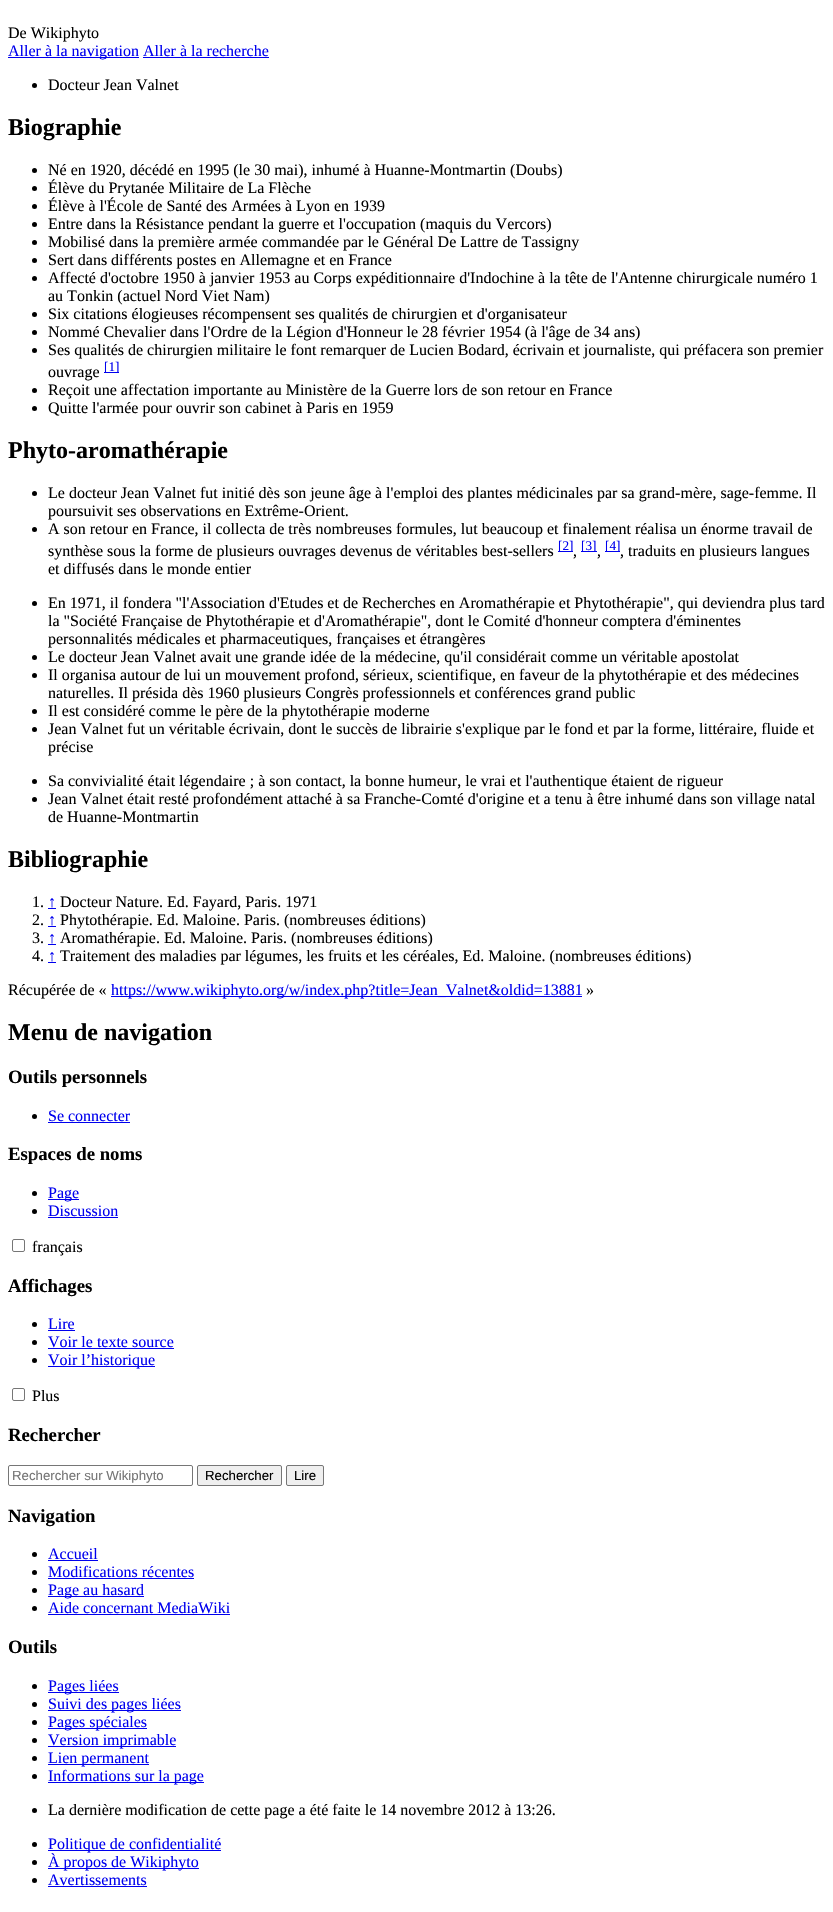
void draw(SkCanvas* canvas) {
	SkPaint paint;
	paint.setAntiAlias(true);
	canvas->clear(0xffffffff);
	SkFont f1(fontMgr->matchFamilyStyle("Liberation Serif", SkFontStyle::Normal()), 16);
	f1.setSubpixel(true);
	paint.setColor(0xff000000);
	canvas->drawString("De Wikiphyto", 8, 38, f1, paint);
	paint.setColor(0xff0000ee);
	canvas->drawRect(SkRect::MakeXYWH(8, 57, 131, 1), paint);
	canvas->drawString("Aller à la navigation Aller à la recherche", 8, 56, f1, paint);
	canvas->drawRect(SkRect::MakeXYWH(143, 57, 126, 1), paint);
	paint.setColor(0xff000000);
	canvas->drawCircle(34.5, 85.5, 2.5, paint);
	canvas->drawString("Docteur Jean Valnet", 48, 90, f1, paint);
	SkFont f2(fontMgr->matchFamilyStyle("Liberation Serif", SkFontStyle::Bold()), 24);
	f2.setSubpixel(true);
	canvas->drawString("Biographie", 8, 135, f2, paint);
	canvas->drawCircle(34.5, 170.5, 2.5, paint);
	canvas->drawString("Né en 1920, décédé en 1995 (le 30 mai), inhumé à Huanne-Montmartin (Doubs)", 48, 175, f1, paint);
	canvas->drawCircle(34.5, 188.5, 2.5, paint);
	canvas->drawString("Élève du Prytanée Militaire de La Flèche", 48, 193, f1, paint);
	canvas->drawCircle(34.5, 206.5, 2.5, paint);
	canvas->drawString("Élève à l'École de Santé des Armées à Lyon en 1939", 48, 211, f1, paint);
	canvas->drawCircle(34.5, 224.5, 2.5, paint);
	canvas->drawString("Entre dans la Résistance pendant la guerre et l'occupation (maquis du Vercors)", 48, 229, f1, paint);
	canvas->drawCircle(34.5, 242.5, 2.5, paint);
	canvas->drawString("Mobilisé dans la première armée commandée par le Général De Lattre de Tassigny", 48, 247, f1, paint);
	canvas->drawCircle(34.5, 260.5, 2.5, paint);
	canvas->drawString("Sert dans différents postes en Allemagne et en France", 48, 265, f1, paint);
	canvas->drawCircle(34.5, 278.5, 2.5, paint);
	canvas->drawString("Affecté d'octobre 1950 à janvier 1953 au Corps expéditionnaire d'Indochine à la tête de l'Antenne chirurgicale numéro 1", 48, 283, f1, paint);
	canvas->drawString("au Tonkin (actuel Nord Viet Nam)", 48, 301, f1, paint);
	canvas->drawCircle(34.5, 314.5, 2.5, paint);
	canvas->drawString("Six citations élogieuses récompensent ses qualités de chirurgien et d'organisateur", 48, 319, f1, paint);
	canvas->drawCircle(34.5, 332.5, 2.5, paint);
	canvas->drawString("Nommé Chevalier dans l'Ordre de la Légion d'Honneur le 28 février 1954 (à l'âge de 34 ans)", 48, 337, f1, paint);
	canvas->drawCircle(34.5, 350.5, 2.5, paint);
	canvas->drawString("Ses qualités de chirurgien militaire le font remarquer de Lucien Bodard, écrivain et journaliste, qui préfacera son premier", 48, 355, f1, paint);
	canvas->drawString("ouvrage", 48, 377, f1, paint);
	paint.setColor(0xff0000ee);
	canvas->drawRect(SkRect::MakeXYWH(104, 372, 15, 1), paint);
	SkFont f3(fontMgr->matchFamilyStyle("Liberation Serif", SkFontStyle::Normal()), 13.25);
	f3.setSubpixel(true);
	canvas->drawString("[1]", 104, 371, f3, paint);
	paint.setColor(0xff000000);
	canvas->drawCircle(34.5, 390.5, 2.5, paint);
	canvas->drawString("Reçoit une affectation importante au Ministère de la Guerre lors de son retour en France", 48, 395, f1, paint);
	canvas->drawCircle(34.5, 408.5, 2.5, paint);
	canvas->drawString("Quitte l'armée pour ouvrir son cabinet à Paris en 1959", 48, 413, f1, paint);
	canvas->drawString("Phyto-aromathérapie", 8, 458, f2, paint);
	canvas->drawCircle(34.5, 493.5, 2.5, paint);
	canvas->drawString("Le docteur Jean Valnet fut initié dès son jeune âge à l'emploi des plantes médicinales par sa grand-mère, sage-femme. Il", 48, 498, f1, paint);
	canvas->drawString("poursuivit ses observations en Extrême-Orient.", 48, 516, f1, paint);
	canvas->drawCircle(34.5, 529.5, 2.5, paint);
	canvas->drawString("A son retour en France, il collecta de très nombreuses formules, lut beaucoup et finalement réalisa un énorme travail de", 48, 534, f1, paint);
	canvas->drawString("synthèse sous la forme de plusieurs ouvrages devenus de véritables best-sellers", 48, 556, f1, paint);
	paint.setColor(0xff0000ee);
	canvas->drawRect(SkRect::MakeXYWH(558, 551, 15, 1), paint);
	canvas->drawString("[2]", 558, 550, f3, paint);
	paint.setColor(0xff000000);
	canvas->drawString(",", 573, 556, f1, paint);
	paint.setColor(0xff0000ee);
	canvas->drawRect(SkRect::MakeXYWH(581, 551, 16, 1), paint);
	canvas->drawString("[3]", 581, 550, f3, paint);
	paint.setColor(0xff000000);
	canvas->drawString(",", 597, 556, f1, paint);
	paint.setColor(0xff0000ee);
	canvas->drawRect(SkRect::MakeXYWH(605, 551, 15, 1), paint);
	canvas->drawString("[4]", 605, 550, f3, paint);
	paint.setColor(0xff000000);
	canvas->drawString(", traduits en plusieurs langues", 620, 556, f1, paint);
	canvas->drawString("et diffusés dans le monde entier", 48, 574, f1, paint);
	canvas->drawCircle(34.5, 603.5, 2.5, paint);
	canvas->drawString("En 1971, il fondera \"l'Association d'Etudes et de Recherches en Aromathérapie et Phytothérapie\", qui deviendra plus tard", 48, 608, f1, paint);
	canvas->drawString("la \"Société Française de Phytothérapie et d'Aromathérapie\", dont le Comité d'honneur comptera d'éminentes", 48, 626, f1, paint);
	canvas->drawString("personnalités médicales et pharmaceutiques, françaises et étrangères", 48, 644, f1, paint);
	canvas->drawCircle(34.5, 657.5, 2.5, paint);
	canvas->drawString("Le docteur Jean Valnet avait une grande idée de la médecine, qu'il considérait comme un véritable apostolat", 48, 662, f1, paint);
	canvas->drawCircle(34.5, 675.5, 2.5, paint);
	canvas->drawString("Il organisa autour de lui un mouvement profond, sérieux, scientifique, en faveur de la phytothérapie et des médecines", 48, 680, f1, paint);
	canvas->drawString("naturelles. Il présida dès 1960 plusieurs Congrès professionnels et conférences grand public", 48, 698, f1, paint);
	canvas->drawCircle(34.5, 711.5, 2.5, paint);
	canvas->drawString("Il est considéré comme le père de la phytothérapie moderne", 48, 716, f1, paint);
	canvas->drawCircle(34.5, 729.5, 2.5, paint);
	canvas->drawString("Jean Valnet fut un véritable écrivain, dont le succès de librairie s'explique par le fond et par la forme, littéraire, fluide et", 48, 734, f1, paint);
	canvas->drawString("précise", 48, 752, f1, paint);
	canvas->drawCircle(34.5, 781.5, 2.5, paint);
	canvas->drawString("Sa convivialité était légendaire ; à son contact, la bonne humeur, le vrai et l'authentique étaient de rigueur", 48, 786, f1, paint);
	canvas->drawCircle(34.5, 799.5, 2.5, paint);
	canvas->drawString("Jean Valnet était resté profondément attaché à sa Franche-Comté d'origine et a tenu à être inhumé dans son village natal", 48, 804, f1, paint);
	canvas->drawString("de Huanne-Montmartin", 48, 822, f1, paint);
	canvas->drawString("Bibliographie", 8, 867, f2, paint);
	canvas->drawString("1.", 32, 907, f1, paint);
	paint.setColor(0xff0000ee);
	canvas->drawString("↑", 48, 907, f1, paint);
	canvas->drawRect(SkRect::MakeXYWH(48, 908, 8, 1), paint);
	paint.setColor(0xff000000);
	canvas->drawString("Docteur Nature. Ed. Fayard, Paris. 1971", 60, 907, f1, paint);
	canvas->drawString("2.", 32, 925, f1, paint);
	paint.setColor(0xff0000ee);
	canvas->drawString("↑", 48, 925, f1, paint);
	canvas->drawRect(SkRect::MakeXYWH(48, 926, 8, 1), paint);
	paint.setColor(0xff000000);
	canvas->drawString("Phytothérapie. Ed. Maloine. Paris. (nombreuses éditions)", 60, 925, f1, paint);
	canvas->drawString("3.", 32, 943, f1, paint);
	paint.setColor(0xff0000ee);
	canvas->drawString("↑", 48, 943, f1, paint);
	canvas->drawRect(SkRect::MakeXYWH(48, 944, 8, 1), paint);
	paint.setColor(0xff000000);
	canvas->drawString("Aromathérapie. Ed. Maloine. Paris. (nombreuses éditions)", 60, 943, f1, paint);
	canvas->drawString("4.", 32, 961, f1, paint);
	paint.setColor(0xff0000ee);
	canvas->drawString("↑", 48, 961, f1, paint);
	canvas->drawRect(SkRect::MakeXYWH(48, 962, 8, 1), paint);
	paint.setColor(0xff000000);
	canvas->drawString("Traitement des maladies par légumes, les fruits et les céréales, Ed. Maloine. (nombreuses éditions)", 60, 961, f1, paint);
	canvas->drawString("Récupérée de «", 8, 995, f1, paint);
	paint.setColor(0xff0000ee);
	canvas->drawRect(SkRect::MakeXYWH(111, 996, 471, 1), paint);
	canvas->drawString("https://www.wikiphyto.org/w/index.php?title=Jean_Valnet&oldid=13881", 111, 995, f1, paint);
	paint.setColor(0xff000000);
	canvas->drawString("»", 586, 995, f1, paint);
	canvas->drawString("Menu de navigation", 8, 1040, f2, paint);
	SkFont f4(fontMgr->matchFamilyStyle("Liberation Serif", SkFontStyle::Bold()), 18.75);
	f4.setSubpixel(true);
	canvas->drawString("Outils personnels", 8, 1083, f4, paint);
	canvas->drawCircle(34.5, 1116.5, 2.5, paint);
	paint.setColor(0xff0000ee);
	canvas->drawString("Se connecter", 48, 1121, f1, paint);
	canvas->drawRect(SkRect::MakeXYWH(48, 1122, 82, 1), paint);
	paint.setColor(0xff000000);
	canvas->drawString("Espaces de noms", 8, 1160, f4, paint);
	canvas->drawCircle(34.5, 1193.5, 2.5, paint);
	paint.setColor(0xff0000ee);
	canvas->drawRect(SkRect::MakeXYWH(48, 1199, 31, 1), paint);
	canvas->drawString("Page", 48, 1198, f1, paint);
	paint.setColor(0xff000000);
	canvas->drawCircle(34.5, 1211.5, 2.5, paint);
	paint.setColor(0xff0000ee);
	canvas->drawString("Discussion", 48, 1216, f1, paint);
	canvas->drawRect(SkRect::MakeXYWH(48, 1217, 70, 1), paint);
	paint.setStroke(true);
	paint.setStrokeWidth(1);
	paint.setColor(0xff767676);
	canvas->drawRoundRect(SkRect::MakeXYWH(12.5, 1239.5, 12, 12), 1.5, 1.5, paint);
	paint.setStroke(false);
	paint.setColor(0xff000000);
	canvas->drawString("français", 32, 1252, f1, paint);
	canvas->drawString("Affichages", 8, 1292, f4, paint);
	canvas->drawCircle(34.5, 1324.5, 2.5, paint);
	paint.setColor(0xff0000ee);
	canvas->drawString("Lire", 48, 1329, f1, paint);
	canvas->drawRect(SkRect::MakeXYWH(48, 1330, 27, 1), paint);
	paint.setColor(0xff000000);
	canvas->drawCircle(34.5, 1342.5, 2.5, paint);
	paint.setColor(0xff0000ee);
	canvas->drawString("Voir le texte source", 48, 1347, f1, paint);
	canvas->drawRect(SkRect::MakeXYWH(48, 1348, 126, 1), paint);
	paint.setColor(0xff000000);
	canvas->drawCircle(34.5, 1360.5, 2.5, paint);
	paint.setColor(0xff0000ee);
	canvas->drawRect(SkRect::MakeXYWH(48, 1366, 107, 1), paint);
	canvas->drawString("Voir l’historique", 48, 1365, f1, paint);
	paint.setStroke(true);
	paint.setColor(0xff767676);
	canvas->drawRoundRect(SkRect::MakeXYWH(12.5, 1388.5, 12, 12), 1.5, 1.5, paint);
	paint.setStroke(false);
	paint.setColor(0xff000000);
	canvas->drawString("Plus", 32, 1401, f1, paint);
	canvas->drawString("Rechercher", 8, 1441, f4, paint);
	paint.setStroke(true);
	paint.setColor(0xff767676);
	canvas->drawRoundRect(SkRect::MakeXYWH(8.5, 1465.5, 184, 20), 1.5, 1.5, paint);
	SkFont f5(fontMgr->matchFamilyStyle("Liberation Sans", SkFontStyle::Normal()), 13.25);
	f5.setSubpixel(true);
	paint.setStroke(false);
	paint.setColor(0xff757575);
	canvas->drawString("Rechercher sur Wikiphyto", 12, 1480, f5, paint);
	paint.setColor(0xffefefef);
	canvas->drawRoundRect(SkRect::MakeXYWH(197.5, 1465.5, 84, 20), 1.5, 1.5, paint);
	paint.setStroke(true);
	paint.setColor(0xff767676);
	canvas->drawRoundRect(SkRect::MakeXYWH(197.5, 1465.5, 84, 20), 1.5, 1.5, paint);
	paint.setStroke(false);
	paint.setColor(0xff000000);
	canvas->drawString("Rechercher", 205, 1480, f5, paint);
	paint.setColor(0xffefefef);
	canvas->drawRoundRect(SkRect::MakeXYWH(286.5, 1465.5, 37, 20), 1.5, 1.5, paint);
	paint.setStroke(true);
	paint.setColor(0xff767676);
	canvas->drawRoundRect(SkRect::MakeXYWH(286.5, 1465.5, 37, 20), 1.5, 1.5, paint);
	paint.setStroke(false);
	paint.setColor(0xff000000);
	canvas->drawString("Lire", 294, 1480, f5, paint);
	canvas->drawString("Navigation", 8, 1522, f4, paint);
	canvas->drawCircle(34.5, 1554.5, 2.5, paint);
	paint.setColor(0xff0000ee);
	canvas->drawString("Accueil", 48, 1559, f1, paint);
	canvas->drawRect(SkRect::MakeXYWH(48, 1560, 50, 1), paint);
	paint.setColor(0xff000000);
	canvas->drawCircle(34.5, 1572.5, 2.5, paint);
	paint.setColor(0xff0000ee);
	canvas->drawString("Modifications récentes", 48, 1577, f1, paint);
	canvas->drawRect(SkRect::MakeXYWH(48, 1578, 146, 1), paint);
	paint.setColor(0xff000000);
	canvas->drawCircle(34.5, 1590.5, 2.5, paint);
	paint.setColor(0xff0000ee);
	canvas->drawRect(SkRect::MakeXYWH(48, 1596, 96, 1), paint);
	canvas->drawString("Page au hasard", 48, 1595, f1, paint);
	paint.setColor(0xff000000);
	canvas->drawCircle(34.5, 1608.5, 2.5, paint);
	paint.setColor(0xff0000ee);
	canvas->drawString("Aide concernant MediaWiki", 48, 1613, f1, paint);
	canvas->drawRect(SkRect::MakeXYWH(48, 1614, 182, 1), paint);
	paint.setColor(0xff000000);
	canvas->drawString("Outils", 8, 1653, f4, paint);
	canvas->drawCircle(34.5, 1686.5, 2.5, paint);
	paint.setColor(0xff0000ee);
	canvas->drawRect(SkRect::MakeXYWH(48, 1692, 71, 1), paint);
	canvas->drawString("Pages liées", 48, 1691, f1, paint);
	paint.setColor(0xff000000);
	canvas->drawCircle(34.5, 1704.5, 2.5, paint);
	paint.setColor(0xff0000ee);
	canvas->drawRect(SkRect::MakeXYWH(48, 1710, 133, 1), paint);
	canvas->drawString("Suivi des pages liées", 48, 1709, f1, paint);
	paint.setColor(0xff000000);
	canvas->drawCircle(34.5, 1722.5, 2.5, paint);
	paint.setColor(0xff0000ee);
	canvas->drawRect(SkRect::MakeXYWH(48, 1728, 99, 1), paint);
	canvas->drawString("Pages spéciales", 48, 1727, f1, paint);
	paint.setColor(0xff000000);
	canvas->drawCircle(34.5, 1740.5, 2.5, paint);
	paint.setColor(0xff0000ee);
	canvas->drawRect(SkRect::MakeXYWH(48, 1746, 128, 1), paint);
	canvas->drawString("Version imprimable", 48, 1745, f1, paint);
	paint.setColor(0xff000000);
	canvas->drawCircle(34.5, 1758.5, 2.5, paint);
	paint.setColor(0xff0000ee);
	canvas->drawRect(SkRect::MakeXYWH(48, 1764, 101, 1), paint);
	canvas->drawString("Lien permanent", 48, 1763, f1, paint);
	paint.setColor(0xff000000);
	canvas->drawCircle(34.5, 1776.5, 2.5, paint);
	paint.setColor(0xff0000ee);
	canvas->drawRect(SkRect::MakeXYWH(48, 1782, 156, 1), paint);
	canvas->drawString("Informations sur la page", 48, 1781, f1, paint);
	paint.setColor(0xff000000);
	canvas->drawCircle(34.5, 1810.5, 2.5, paint);
	canvas->drawString("La dernière modification de cette page a été faite le 14 novembre 2012 à 13:26.", 48, 1815, f1, paint);
	canvas->drawCircle(34.5, 1844.5, 2.5, paint);
	paint.setColor(0xff0000ee);
	canvas->drawRect(SkRect::MakeXYWH(48, 1850, 173, 1), paint);
	canvas->drawString("Politique de confidentialité", 48, 1849, f1, paint);
	paint.setColor(0xff000000);
	canvas->drawCircle(34.5, 1862.5, 2.5, paint);
	paint.setColor(0xff0000ee);
	canvas->drawRect(SkRect::MakeXYWH(48, 1868, 151, 1), paint);
	canvas->drawString("À propos de Wikiphyto", 48, 1867, f1, paint);
	paint.setColor(0xff000000);
	canvas->drawCircle(34.5, 1880.5, 2.5, paint);
	paint.setColor(0xff0000ee);
	canvas->drawString("Avertissements", 48, 1885, f1, paint);
	canvas->drawRect(SkRect::MakeXYWH(48, 1886, 99, 1), paint);
}
